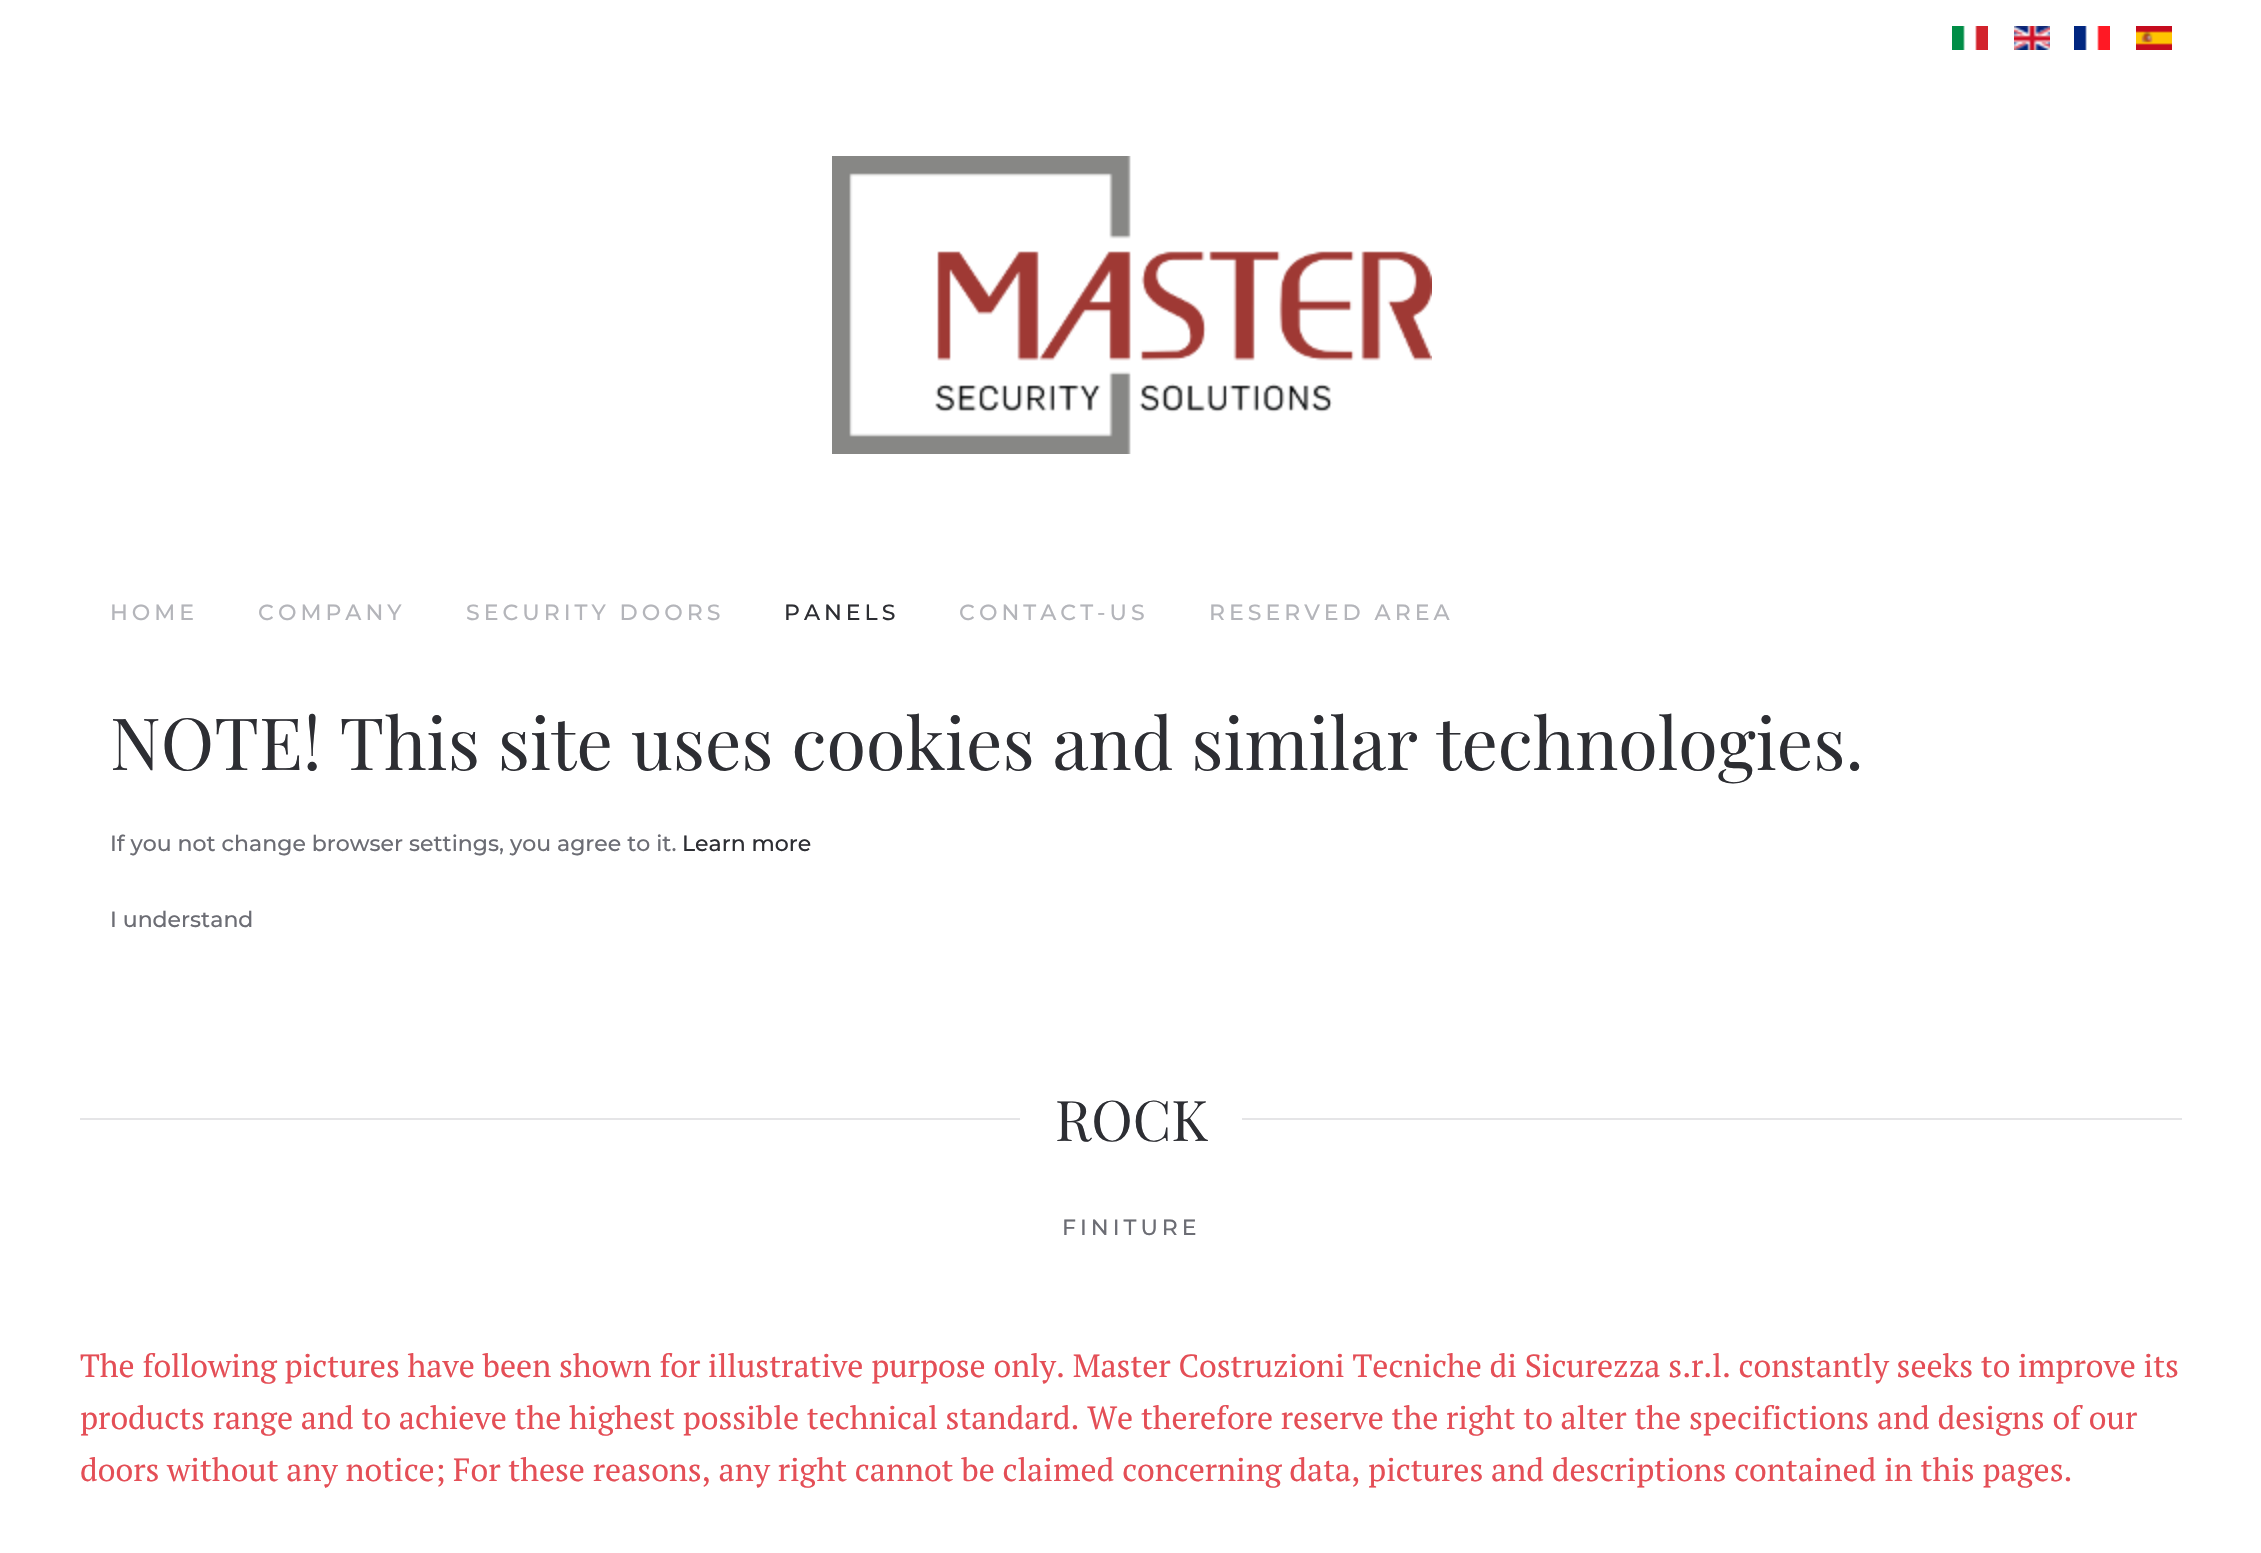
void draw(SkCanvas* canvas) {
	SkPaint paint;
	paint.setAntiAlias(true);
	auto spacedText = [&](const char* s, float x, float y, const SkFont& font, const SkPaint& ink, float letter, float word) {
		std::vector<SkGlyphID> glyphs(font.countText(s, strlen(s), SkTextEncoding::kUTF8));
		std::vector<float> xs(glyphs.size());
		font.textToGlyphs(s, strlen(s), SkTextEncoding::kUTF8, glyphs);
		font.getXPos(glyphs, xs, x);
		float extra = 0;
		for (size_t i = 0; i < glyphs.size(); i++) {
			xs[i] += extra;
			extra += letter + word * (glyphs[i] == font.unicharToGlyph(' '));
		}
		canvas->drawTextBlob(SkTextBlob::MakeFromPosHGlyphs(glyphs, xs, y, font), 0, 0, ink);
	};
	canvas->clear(0xffffffff);
	canvas->drawImageRect(SkImages::DeferredFromEncodedData(SkData::MakeFromFileName("img1.png")), SkRect::MakeXYWH(1952, 26, 36, 24), SkSamplingOptions());
	canvas->drawImageRect(SkImages::DeferredFromEncodedData(SkData::MakeFromFileName("img2.png")), SkRect::MakeXYWH(2014, 26, 36, 24), SkSamplingOptions());
	canvas->drawImageRect(SkImages::DeferredFromEncodedData(SkData::MakeFromFileName("img3.png")), SkRect::MakeXYWH(2074, 26, 36, 24), SkSamplingOptions());
	canvas->drawImageRect(SkImages::DeferredFromEncodedData(SkData::MakeFromFileName("img4.png")), SkRect::MakeXYWH(2136, 26, 36, 24), SkSamplingOptions());
	canvas->drawImageRect(SkImages::DeferredFromEncodedData(SkData::MakeFromFileName("img5.png")), SkRect::MakeXYWH(832, 156, 600, 298), SkSamplingOptions());
	SkFont f1(fontMgr->matchFamilyStyle("Montserrat", SkFontStyle(500, SkFontStyle::kNormal_Width, SkFontStyle::kUpright_Slant)), 22);
	f1.setSubpixel(true);
	paint.setColor(0xffb4b5ba);
	spacedText("HOME", 110, 620, f1, paint, 4, 0);
	spacedText("COMPANY", 258, 620, f1, paint, 4, 0);
	spacedText("SECURITY DOORS", 466, 620, f1, paint, 4, 0);
	paint.setColor(0xff2d2e33);
	spacedText("PANELS", 784, 620, f1, paint, 4, 0);
	paint.setColor(0xffb4b5ba);
	spacedText("CONTACT-US", 959, 620, f1, paint, 4, 0);
	spacedText("RESERVED AREA", 1209, 620, f1, paint, 4, 0);
	SkFont f2(fontMgr->matchFamilyStyle("Playfair Display", SkFontStyle::Normal()), 72);
	f2.setSubpixel(true);
	paint.setColor(0xff2d2e33);
	canvas->drawString("NOTE! This site uses cookies and similar technologies.", 110, 770, f2, paint);
	paint.setColor(0xff6c6d74);
	canvas->drawString("If you not change browser settings, you agree to it.", 110, 851, f1, paint);
	paint.setColor(0xff2d2e33);
	canvas->drawString("Learn more", 682, 851, f1, paint);
	paint.setColor(0xff6c6d74);
	canvas->drawString("I understand", 110, 927, f1, paint);
	paint.setColor(0xffe5e5e7);
	canvas->drawRect(SkRect::MakeXYWH(80, 1118, 940, 2), paint);
	SkFont f3(fontMgr->matchFamilyStyle("Playfair Display", SkFontStyle::Normal()), 56);
	f3.setSubpixel(true);
	paint.setColor(0xff2d2e33);
	canvas->drawString("ROCK", 1055, 1141, f3, paint);
	paint.setColor(0xffe5e5e7);
	canvas->drawRect(SkRect::MakeXYWH(1242, 1118, 940, 2), paint);
	paint.setColor(0xff6c6d74);
	spacedText("FINITURE", 1062, 1235, f1, paint, 4, 0);
	SkFont f4(fontMgr->matchFamilyStyle("PT Serif", SkFontStyle::Normal()), 32);
	f4.setSubpixel(true);
	paint.setColor(0xffe44e56);
	canvas->drawString("The following pictures have been shown for illustrative purpose only. Master Costruzioni Tecniche di Sicurezza s.r.l. constantly seeks to improve its", 80, 1377, f4, paint);
	canvas->drawString("products range and to achieve the highest possible technical standard. We therefore reserve the right to alter the specifictions and designs of our", 80, 1429, f4, paint);
	canvas->drawString("doors without any notice; For these reasons, any right cannot be claimed concerning data, pictures and descriptions contained in this pages.", 80, 1481, f4, paint);
}
